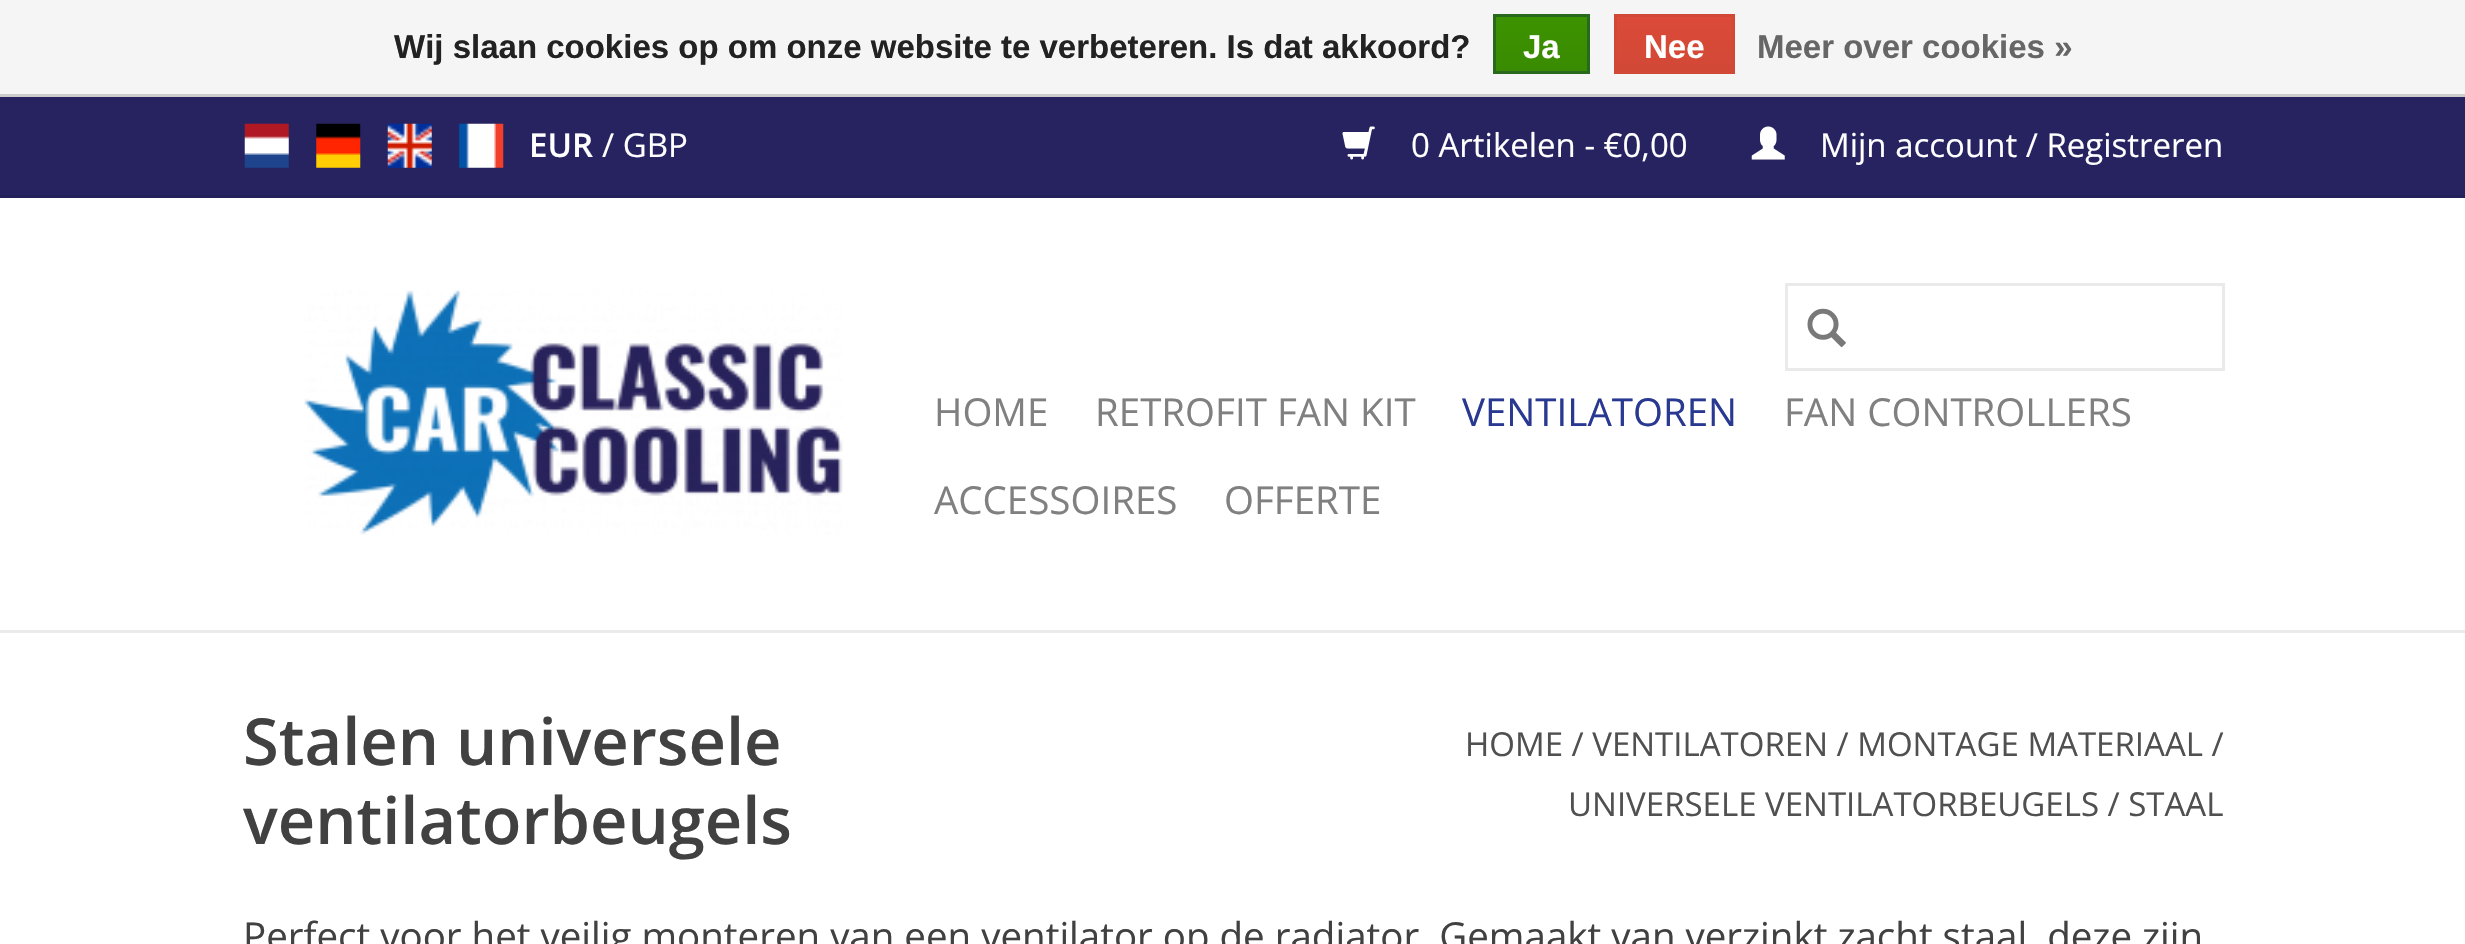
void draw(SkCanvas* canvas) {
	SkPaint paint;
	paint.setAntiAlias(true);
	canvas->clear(0xffffffff);
	paint.setColor(0xfff5f5f5);
	canvas->drawRect(SkRect::MakeXYWH(0, 0, 2465, 94), paint);
	paint.setColor(0xffcccccc);
	canvas->drawRect(SkRect::MakeXYWH(0, 94, 2465, 3), paint);
	SkFont f1(fontMgr->matchFamilyStyle("Liberation Sans", SkFontStyle::Bold()), 33);
	f1.setSubpixel(true);
	paint.setColor(0xff222222);
	canvas->drawString("Wij slaan cookies op om onze website te verbeteren. Is dat akkoord?", 394, 58, f1, paint);
	{
		const SkColor colors[] = {0xff3c9300, 0xff398a00};
		const float stops[] = {0, 1};
		const SkPoint ends[] = {{1541, 16}, {1541, 72}};
		paint.setShader(SkGradientShader::MakeLinear(ends, colors, stops, 2, SkTileMode::kClamp));
		paint.setAlpha(255);
	}
	canvas->drawRect(SkRect::MakeXYWH(1496, 17, 91, 54), paint);
	paint.setStroke(true);
	paint.setStrokeWidth(3);
	paint.setShader(nullptr);
	paint.setColor(0xff29691d);
	canvas->drawRect(SkRect::MakeXYWH(1494.5, 15.5, 94, 57), paint);
	paint.setStroke(false);
	paint.setColor(0xffffffff);
	canvas->drawString("Ja", 1523, 58, f1, paint);
	{
		const SkColor colors[] = {0xffdc4a38, 0xffd14836};
		const float stops[] = {0, 1};
		const SkPoint ends[] = {{1675, 16}, {1675, 72}};
		paint.setShader(SkGradientShader::MakeLinear(ends, colors, stops, 2, SkTileMode::kClamp));
		paint.setAlpha(255);
	}
	canvas->drawRect(SkRect::MakeXYWH(1617, 17, 115, 54), paint);
	paint.setStroke(true);
	paint.setShader(nullptr);
	paint.setColor(0xffd14836);
	canvas->drawRect(SkRect::MakeXYWH(1615.5, 15.5, 118, 57), paint);
	paint.setStroke(false);
	paint.setColor(0xffffffff);
	canvas->drawString("Nee", 1644, 58, f1, paint);
	paint.setColor(0xff666666);
	canvas->drawString("Meer over cookies »", 1757, 58, f1, paint);
	paint.setColor(0xffeaeaea);
	canvas->drawRect(SkRect::MakeXYWH(0, 630, 2465, 3), paint);
	paint.setColor(0xff272361);
	canvas->drawRect(SkRect::MakeXYWH(0, 97, 2465, 98), paint);
	paint.setColor(0xff24205a);
	canvas->drawRect(SkRect::MakeXYWH(0, 195, 2465, 3), paint);
	canvas->drawImageRect(SkImages::DeferredFromEncodedData(SkData::MakeFromFileName("img1.png")), SkRect::MakeXYWH(244, 123, 45, 45), SkSamplingOptions());
	canvas->drawImageRect(SkImages::DeferredFromEncodedData(SkData::MakeFromFileName("img2.png")), SkRect::MakeXYWH(316, 123, 45, 45), SkSamplingOptions());
	canvas->drawImageRect(SkImages::DeferredFromEncodedData(SkData::MakeFromFileName("img3.png")), SkRect::MakeXYWH(387, 123, 45, 45), SkSamplingOptions());
	canvas->drawImageRect(SkImages::DeferredFromEncodedData(SkData::MakeFromFileName("img4.png")), SkRect::MakeXYWH(459, 123, 45, 45), SkSamplingOptions());
	SkFont f2(fontMgr->matchFamilyStyle("Open Sans", SkFontStyle(600, SkFontStyle::kNormal_Width, SkFontStyle::kUpright_Slant)), 33);
	f2.setSubpixel(true);
	paint.setColor(0xffffffff);
	canvas->drawString("EUR", 529, 157, f2, paint);
	SkFont f3(fontMgr->matchFamilyStyle("Open Sans", SkFontStyle::Normal()), 33);
	f3.setSubpixel(true);
	canvas->drawString("/ GBP", 602, 157, f3, paint);
	canvas->drawImageRect(SkImages::DeferredFromEncodedData(SkData::MakeFromFileName("img5.png")), SkRect::MakeXYWH(1342, 126, 33, 34), SkSamplingOptions());
	canvas->drawString("0 Artikelen - €0,00", 1411, 157, f3, paint);
	canvas->drawImageRect(SkImages::DeferredFromEncodedData(SkData::MakeFromFileName("img6.png")), SkRect::MakeXYWH(1751, 126, 34, 34), SkSamplingOptions());
	canvas->drawString("Mijn account / Registreren", 1820, 157, f3, paint);
	canvas->drawImageRect(SkImages::DeferredFromEncodedData(SkData::MakeFromFileName("img7.png")), SkRect::MakeXYWH(304, 290, 539, 245), SkSamplingOptions());
	paint.setStroke(true);
	paint.setColor(0xffeaeaea);
	canvas->drawRect(SkRect::MakeXYWH(1786.5, 284.5, 437, 85), paint);
	canvas->drawImageRect(SkImages::DeferredFromEncodedData(SkData::MakeFromFileName("img8.png")), SkRect::MakeXYWH(1807, 308, 39, 40), SkSamplingOptions());
	SkFont f4(fontMgr->matchFamilyStyle("Open Sans", SkFontStyle::Normal()), 38.5);
	f4.setSubpixel(true);
	paint.setStroke(false);
	paint.setColor(0xff808080);
	canvas->drawString("HOME", 934, 426, f4, paint);
	canvas->drawString("RETROFIT FAN KIT", 1095, 426, f4, paint);
	paint.setColor(0xff293991);
	canvas->drawString("VENTILATOREN", 1462, 426, f4, paint);
	paint.setColor(0xff808080);
	canvas->drawString("FAN CONTROLLERS", 1784, 426, f4, paint);
	canvas->drawString("ACCESSOIRES", 934, 514, f4, paint);
	canvas->drawString("OFFERTE", 1224, 514, f4, paint);
	SkFont f5(fontMgr->matchFamilyStyle("Open Sans", SkFontStyle(600, SkFontStyle::kNormal_Width, SkFontStyle::kUpright_Slant)), 65);
	f5.setSubpixel(true);
	paint.setColor(0xff414141);
	canvas->drawString("Stalen universele", 243, 765, f5, paint);
	canvas->drawString("ventilatorbeugels", 243, 844, f5, paint);
	paint.setColor(0xff505050);
	canvas->drawString("HOME / VENTILATOREN / MONTAGE MATERIAAL /", 1465, 756, f3, paint);
	canvas->drawString("UNIVERSELE VENTILATORBEUGELS / STAAL", 1568, 816, f3, paint);
	paint.setColor(0xff414141);
	canvas->drawString("Perfect voor het veilig monteren van een ventilator op de radiator. Gemaakt van verzinkt zacht staal, deze zijn", 243, 950, f4, paint);
}
